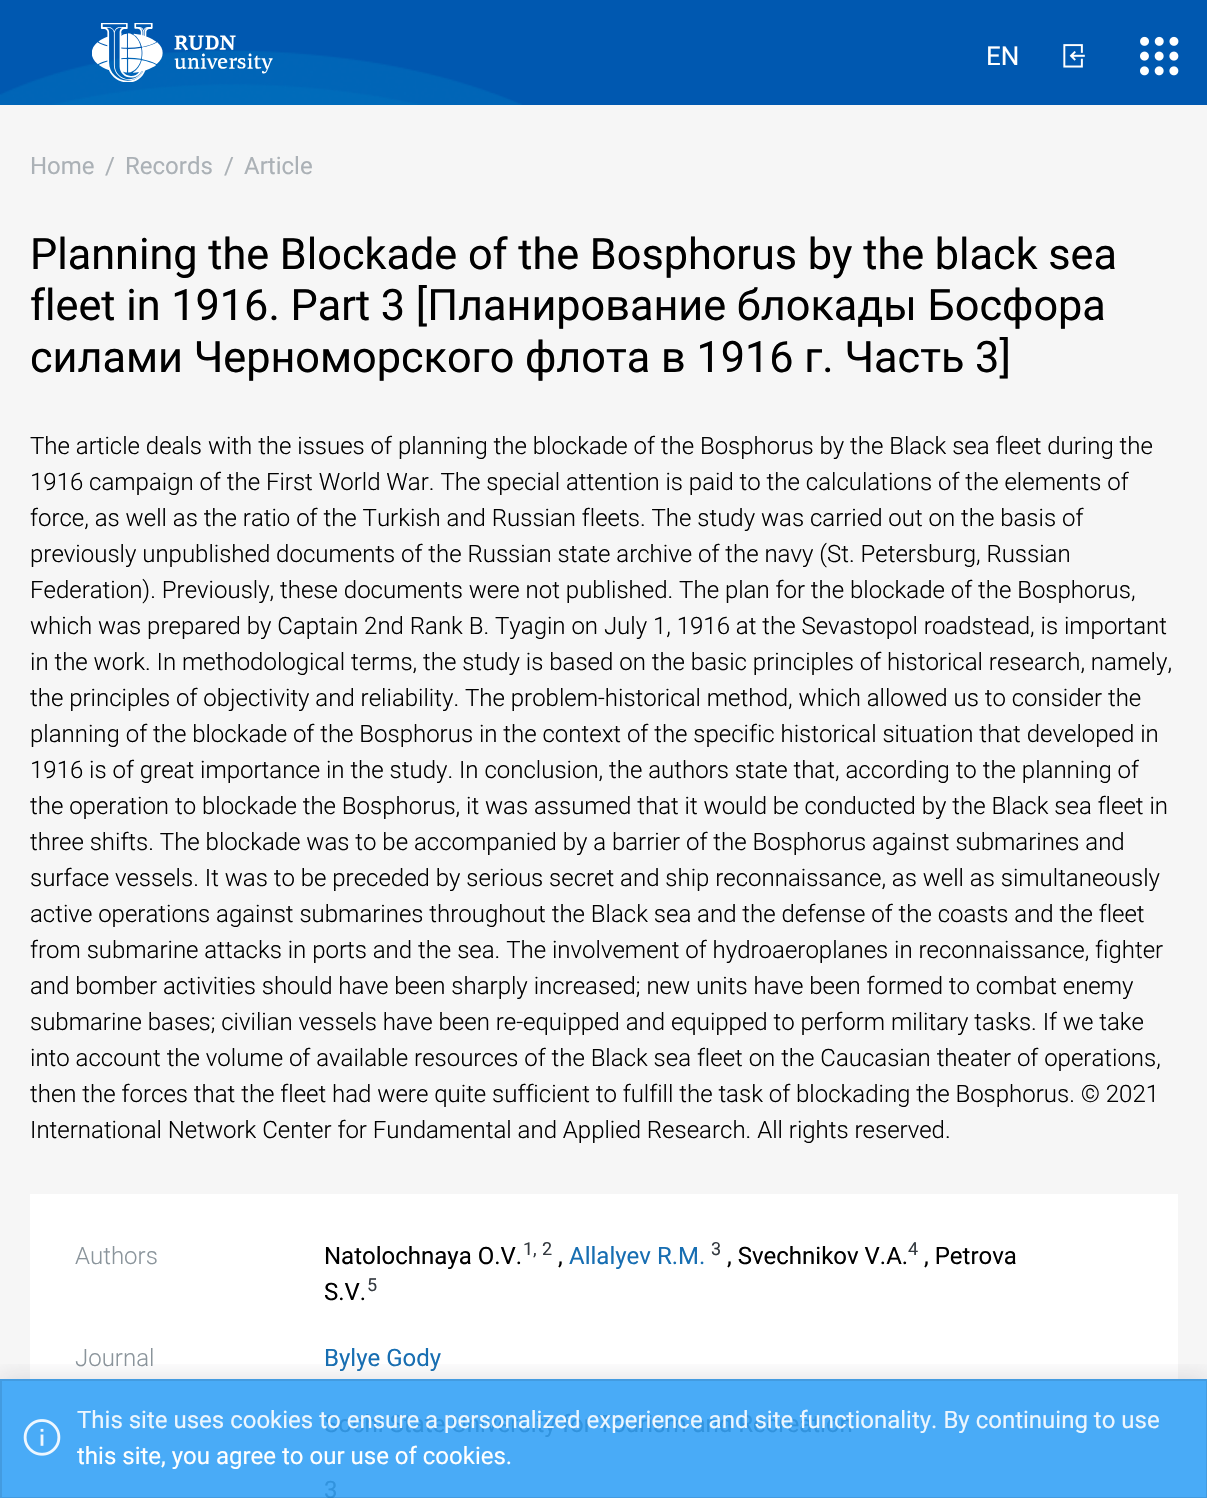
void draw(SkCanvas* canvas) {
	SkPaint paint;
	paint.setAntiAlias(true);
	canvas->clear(0xfff6f6f6);
	paint.setColor(0xff49abf7);
	canvas->drawRect(SkRect::MakeXYWH(0, 1379, 1207, 119), paint);
	paint.setColor(0xff0058b0);
	canvas->drawRect(SkRect::MakeXYWH(0, 0, 1207, 105), paint);
	canvas->drawImageRect(SkImages::DeferredFromEncodedData(SkData::MakeFromFileName("img1.png")), SkRect::MakeXYWH(0, 50, 522, 55), SkSamplingOptions());
	canvas->drawImageRect(SkImages::DeferredFromEncodedData(SkData::MakeFromFileName("img2.png")), SkRect::MakeXYWH(92, 23, 181, 59), SkSamplingOptions());
	SkFont f1(fontMgr->matchFamilyStyle("Roboto", SkFontStyle::Normal()), 26);
	f1.setSubpixel(true);
	paint.setColor(0xffffffff);
	canvas->drawString("EN", 986, 65, f1, paint);
	canvas->drawImageRect(SkImages::DeferredFromEncodedData(SkData::MakeFromFileName("img3.png")), SkRect::MakeXYWH(1063, 44, 22, 24), SkSamplingOptions());
	canvas->drawImageRect(SkImages::DeferredFromEncodedData(SkData::MakeFromFileName("img4.png")), SkRect::MakeXYWH(1140, 36, 39, 40), SkSamplingOptions());
	SkFont f2(fontMgr->matchFamilyStyle("Roboto", SkFontStyle::Normal()), 24);
	f2.setSubpixel(true);
	paint.setColor(0xffabb1b6);
	canvas->drawString("Home", 30, 174, f2, paint);
	canvas->drawString("/", 105, 174, f2, paint);
	canvas->drawString("Records", 125, 174, f2, paint);
	canvas->drawString("/", 224, 174, f2, paint);
	canvas->drawString("Article", 244, 174, f2, paint);
	SkFont f3(fontMgr->matchFamilyStyle("Roboto", SkFontStyle::Normal()), 43.2);
	f3.setSubpixel(true);
	paint.setColor(0xff000000);
	canvas->drawString("Planning the Blockade of the Bosphorus by the black sea", 30, 269, f3, paint);
	canvas->drawString("fleet in 1916. Part 3 [Планирование блокады Босфора", 30, 320, f3, paint);
	canvas->drawString("силами Черноморского флота в 1916 г. Часть 3]", 30, 372, f3, paint);
	SkFont f4(fontMgr->matchFamilyStyle("Roboto", SkFontStyle(300, SkFontStyle::kNormal_Width, SkFontStyle::kUpright_Slant)), 24);
	f4.setSubpixel(true);
	canvas->drawString("The article deals with the issues of planning the blockade of the Bosphorus by the Black sea fleet during the", 30, 454, f4, paint);
	canvas->drawString("1916 campaign of the First World War. The special attention is paid to the calculations of the elements of", 30, 490, f4, paint);
	canvas->drawString("force, as well as the ratio of the Turkish and Russian fleets. The study was carried out on the basis of", 30, 526, f4, paint);
	canvas->drawString("previously unpublished documents of the Russian state archive of the navy (St. Petersburg, Russian", 30, 562, f4, paint);
	canvas->drawString("Federation). Previously, these documents were not published. The plan for the blockade of the Bosphorus,", 30, 598, f4, paint);
	canvas->drawString("which was prepared by Captain 2nd Rank B. Tyagin on July 1, 1916 at the Sevastopol roadstead, is important", 30, 634, f4, paint);
	canvas->drawString("in the work. In methodological terms, the study is based on the basic principles of historical research, namely,", 30, 670, f4, paint);
	canvas->drawString("the principles of objectivity and reliability. The problem-historical method, which allowed us to consider the", 30, 706, f4, paint);
	canvas->drawString("planning of the blockade of the Bosphorus in the context of the specific historical situation that developed in", 30, 742, f4, paint);
	canvas->drawString("1916 is of great importance in the study. In conclusion, the authors state that, according to the planning of", 30, 778, f4, paint);
	canvas->drawString("the operation to blockade the Bosphorus, it was assumed that it would be conducted by the Black sea fleet in", 30, 814, f4, paint);
	canvas->drawString("three shifts. The blockade was to be accompanied by a barrier of the Bosphorus against submarines and", 30, 850, f4, paint);
	canvas->drawString("surface vessels. It was to be preceded by serious secret and ship reconnaissance, as well as simultaneously", 30, 886, f4, paint);
	canvas->drawString("active operations against submarines throughout the Black sea and the defense of the coasts and the fleet", 30, 922, f4, paint);
	canvas->drawString("from submarine attacks in ports and the sea. The involvement of hydroaeroplanes in reconnaissance, fighter", 30, 958, f4, paint);
	canvas->drawString("and bomber activities should have been sharply increased; new units have been formed to combat enemy", 30, 994, f4, paint);
	canvas->drawString("submarine bases; civilian vessels have been re-equipped and equipped to perform military tasks. If we take", 30, 1030, f4, paint);
	canvas->drawString("into account the volume of available resources of the Black sea fleet on the Caucasian theater of operations,", 30, 1066, f4, paint);
	canvas->drawString("then the forces that the fleet had were quite sufficient to fulfill the task of blockading the Bosphorus. © 2021", 30, 1102, f4, paint);
	canvas->drawString("International Network Center for Fundamental and Applied Research. All rights reserved.", 30, 1138, f4, paint);
	paint.setColor(0xffffffff);
	canvas->drawRect(SkRect::MakeXYWH(30, 1194, 1148, 185), paint);
	paint.setColor(0xff8a949b);
	canvas->drawString("Authors", 75, 1264, f4, paint);
	paint.setColor(0xff000000);
	canvas->drawString("Natоlochnaya O.V.", 324, 1264, f2, paint);
	SkFont f5(fontMgr->matchFamilyStyle("Roboto", SkFontStyle::Normal()), 18);
	f5.setSubpixel(true);
	paint.setColor(0xff343a40);
	canvas->drawString("1,", 523, 1255, f5, paint);
	canvas->drawString("2", 542, 1255, f5, paint);
	paint.setColor(0xff000000);
	canvas->drawString(",", 558, 1264, f2, paint);
	paint.setColor(0xff176eb2);
	canvas->drawString("Allalyev R.M.", 569, 1264, f2, paint);
	paint.setColor(0xff343a40);
	canvas->drawString("3", 711, 1255, f5, paint);
	paint.setColor(0xff000000);
	canvas->drawString(", Svechnikov V.A.", 727, 1264, f2, paint);
	paint.setColor(0xff343a40);
	canvas->drawString("4", 908, 1255, f5, paint);
	paint.setColor(0xff000000);
	canvas->drawString(", Petrova", 924, 1264, f2, paint);
	canvas->drawString("S.V.", 324, 1300, f2, paint);
	paint.setColor(0xff343a40);
	canvas->drawString("5", 367, 1291, f5, paint);
	paint.setColor(0xff8a949b);
	canvas->drawString("Journal", 75, 1366, f4, paint);
	paint.setColor(0xff176eb2);
	canvas->drawString("Bylye Gody", 324, 1366, f2, paint);
	paint.setColor(0xff3193de);
	canvas->drawString("Sochi State University for Tourism and Recreation", 324, 1432, f2, paint);
	canvas->drawString("3", 324, 1498, f2, paint);
	canvas->save();
	canvas->clipRect(SkRect::MakeXYWH(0, 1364, 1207, 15));
	paint.setColor(0x2e514d5c);
	paint.setMaskFilter(SkMaskFilter::MakeBlur(kNormal_SkBlurStyle, 11));
	canvas->drawRect(SkRect::MakeXYWH(-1, 1377, 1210, 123), paint);
	paint.setMaskFilter(nullptr);
	canvas->restore();
	paint.setStroke(true);
	paint.setStrokeWidth(2);
	paint.setColor(0x17000000);
	canvas->drawRect(SkRect::MakeXYWH(1, 1380, 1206, 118), paint);
	canvas->drawImageRect(SkImages::DeferredFromEncodedData(SkData::MakeFromFileName("img5.png")), SkRect::MakeXYWH(23, 1419, 38, 37), SkSamplingOptions());
	paint.setStroke(false);
	paint.setColor(0xffedf6fe);
	canvas->drawString("This site uses cookies to ensure a personalized experience and site functionality. By continuing to use", 77, 1428, f2, paint);
	paint.setColor(0xffffffff);
	canvas->drawString("this site, you agree to our use of cookies.", 77, 1464, f2, paint);
}
